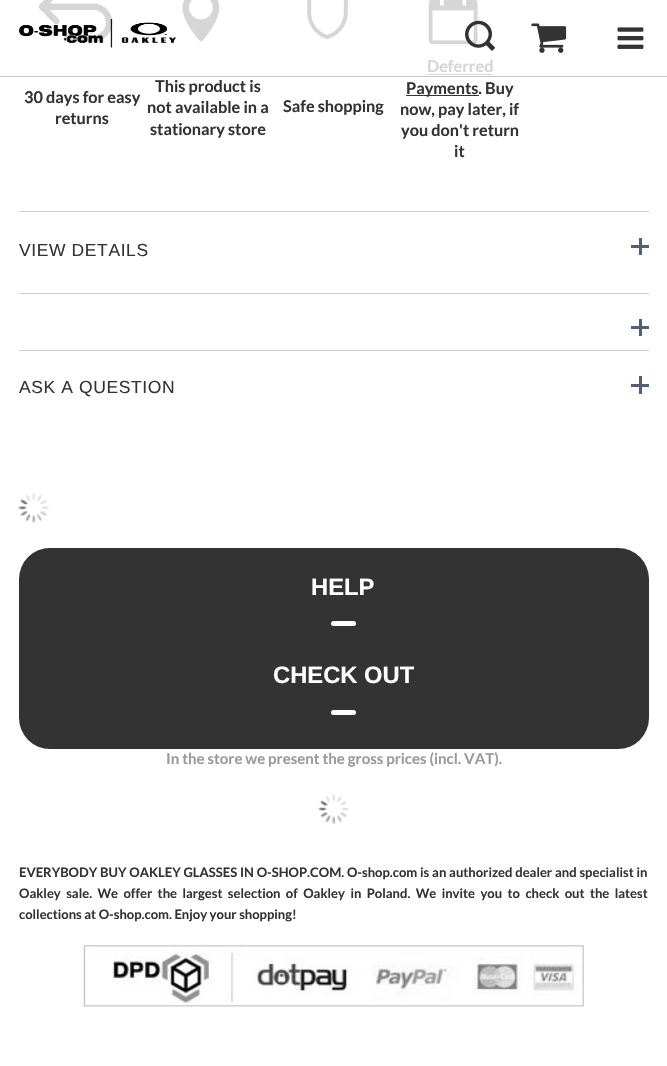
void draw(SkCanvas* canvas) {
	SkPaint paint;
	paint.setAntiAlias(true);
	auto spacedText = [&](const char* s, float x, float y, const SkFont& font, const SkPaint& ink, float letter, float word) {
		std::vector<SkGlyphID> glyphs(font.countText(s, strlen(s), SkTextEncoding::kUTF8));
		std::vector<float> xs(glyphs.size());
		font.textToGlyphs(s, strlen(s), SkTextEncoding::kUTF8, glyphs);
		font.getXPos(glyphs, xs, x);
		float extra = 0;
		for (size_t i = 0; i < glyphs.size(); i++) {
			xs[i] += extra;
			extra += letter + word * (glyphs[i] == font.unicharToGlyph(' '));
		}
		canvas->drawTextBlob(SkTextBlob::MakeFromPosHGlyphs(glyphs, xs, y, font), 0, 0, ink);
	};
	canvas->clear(0xffffffff);
	paint.setColor(0xffc4c7c8);
	canvas->drawRect(SkRect::MakeXYWH(0, 76, 667, 1), paint);
	canvas->drawImageRect(SkImages::DeferredFromEncodedData(SkData::MakeFromFileName("img5.png")), SkRect::MakeXYWH(38, 0, 75, 42), SkSamplingOptions());
	canvas->drawImageRect(SkImages::DeferredFromEncodedData(SkData::MakeFromFileName("img1.png")), SkRect::MakeXYWH(19, 19, 157, 29), SkSamplingOptions());
	canvas->drawImageRect(SkImages::DeferredFromEncodedData(SkData::MakeFromFileName("img8.png")), SkRect::MakeXYWH(428, 0, 50, 45), SkSamplingOptions());
	canvas->drawImageRect(SkImages::DeferredFromEncodedData(SkData::MakeFromFileName("img2.png")), SkRect::MakeXYWH(465, 20, 30, 31), SkSamplingOptions());
	canvas->drawImageRect(SkImages::DeferredFromEncodedData(SkData::MakeFromFileName("img3.png")), SkRect::MakeXYWH(531, 23, 36, 30), SkSamplingOptions());
	canvas->drawImageRect(SkImages::DeferredFromEncodedData(SkData::MakeFromFileName("img4.png")), SkRect::MakeXYWH(617, 27, 27, 22), SkSamplingOptions());
	SkFont f1(fontMgr->matchFamilyStyle("Lato", SkFontStyle::Bold()), 16.25);
	f1.setSubpixel(true);
	paint.setColor(0xff333333);
	canvas->drawString("30 days for easy", 24, 103, f1, paint);
	canvas->drawString("returns", 55, 124, f1, paint);
	canvas->drawImageRect(SkImages::DeferredFromEncodedData(SkData::MakeFromFileName("img6.png")), SkRect::MakeXYWH(182, 0, 38, 42), SkSamplingOptions());
	canvas->drawString("This product is", 155, 92, f1, paint);
	canvas->drawString("not available in a", 147, 113, f1, paint);
	canvas->drawString("stationary store", 150, 135, f1, paint);
	canvas->drawImageRect(SkImages::DeferredFromEncodedData(SkData::MakeFromFileName("img7.png")), SkRect::MakeXYWH(307, 0, 41, 40), SkSamplingOptions());
	canvas->drawString("Safe shopping", 283, 112, f1, paint);
	paint.setColor(0xffd6d6d6);
	canvas->drawString("Deferred", 427, 72, f1, paint);
	canvas->drawRect(SkRect::MakeXYWH(426, 74, 67, 1), paint);
	paint.setColor(0xff333333);
	canvas->drawRect(SkRect::MakeXYWH(406, 95, 73, 1), paint);
	canvas->drawString("Payments. Buy", 406, 94, f1, paint);
	canvas->drawString("now, pay later, if", 400, 115, f1, paint);
	canvas->drawString("you don't return", 401, 136, f1, paint);
	canvas->drawString("it", 454, 157, f1, paint);
	paint.setColor(0xffcfcfcf);
	canvas->drawRect(SkRect::MakeXYWH(19, 211, 630, 1), paint);
	SkFont f2(fontMgr->matchFamilyStyle("Liberation Sans", SkFontStyle::Normal()), 17.5);
	f2.setSubpixel(true);
	paint.setColor(0xff333333);
	spacedText("VIEW DETAILS", 19, 256, f2, paint, 0.6, 0);
	paint.setColor(0xff546070);
	canvas->drawRect(SkRect::MakeXYWH(639, 238, 3, 17), paint);
	canvas->drawRect(SkRect::MakeXYWH(631, 245, 18, 3), paint);
	paint.setColor(0xffcfcfcf);
	canvas->drawRect(SkRect::MakeXYWH(19, 293, 630, 1), paint);
	paint.setColor(0xff546070);
	canvas->drawRect(SkRect::MakeXYWH(639, 319, 3, 17), paint);
	canvas->drawRect(SkRect::MakeXYWH(631, 326, 18, 3), paint);
	paint.setColor(0xffcfcfcf);
	canvas->drawRect(SkRect::MakeXYWH(19, 350, 630, 1), paint);
	paint.setColor(0xff333333);
	spacedText("ASK A QUESTION", 19, 393, f2, paint, 0.6, 0);
	paint.setColor(0xff546070);
	canvas->drawRect(SkRect::MakeXYWH(639, 376, 3, 18), paint);
	canvas->drawRect(SkRect::MakeXYWH(631, 384, 18, 3), paint);
	canvas->drawImageRect(SkImages::DeferredFromEncodedData(SkData::MakeFromFileName("img9.png")), SkRect::MakeXYWH(18, 493, 31, 30), SkSamplingOptions());
	paint.setColor(0xff333333);
	canvas->drawRoundRect(SkRect::MakeXYWH(19, 548, 630, 201), 31, 31, paint);
	SkFont f3(fontMgr->matchFamilyStyle("Liberation Sans", SkFontStyle::Bold()), 23.75);
	f3.setSubpixel(true);
	paint.setColor(0xffffffff);
	canvas->drawString("HELP", 311, 595, f3, paint);
	canvas->drawRoundRect(SkRect::MakeXYWH(331, 621, 25, 5), 2.5, 2.5, paint);
	canvas->drawString("CHECK OUT", 273, 683, f3, paint);
	canvas->drawRoundRect(SkRect::MakeXYWH(331, 710, 25, 5), 2.5, 2.5, paint);
	SkFont f4(fontMgr->matchFamilyStyle("Lato", SkFontStyle::Bold()), 15);
	f4.setSubpixel(true);
	paint.setColor(0xff999999);
	canvas->drawString("In the store we present the gross prices (incl. VAT).", 166, 764, f4, paint);
	canvas->drawImageRect(SkImages::DeferredFromEncodedData(SkData::MakeFromFileName("img10.png")), SkRect::MakeXYWH(318, 794, 31, 30), SkSamplingOptions());
	SkFont f5(fontMgr->matchFamilyStyle("Lato", SkFontStyle::Bold()), 13);
	f5.setSubpixel(true);
	paint.setColor(0xff333333);
	spacedText("EVERYBODY BUY OAKLEY GLASSES IN O-SHOP.COM. O-shop.com is an authorized dealer and specialist in", 19, 877, f5, paint, 0, 0.3);
	spacedText("Oakley sale. We offer the largest selection of Oakley in Poland. We invite you to check out the latest", 19, 898, f5, paint, 0, 2.9);
	canvas->drawString("collections at O-shop.com. Enjoy your shopping!", 19, 919, f5, paint);
	canvas->drawImageRect(SkImages::DeferredFromEncodedData(SkData::MakeFromFileName("img11.png")), SkRect::MakeXYWH(83, 945, 501, 62), SkSamplingOptions());
}
